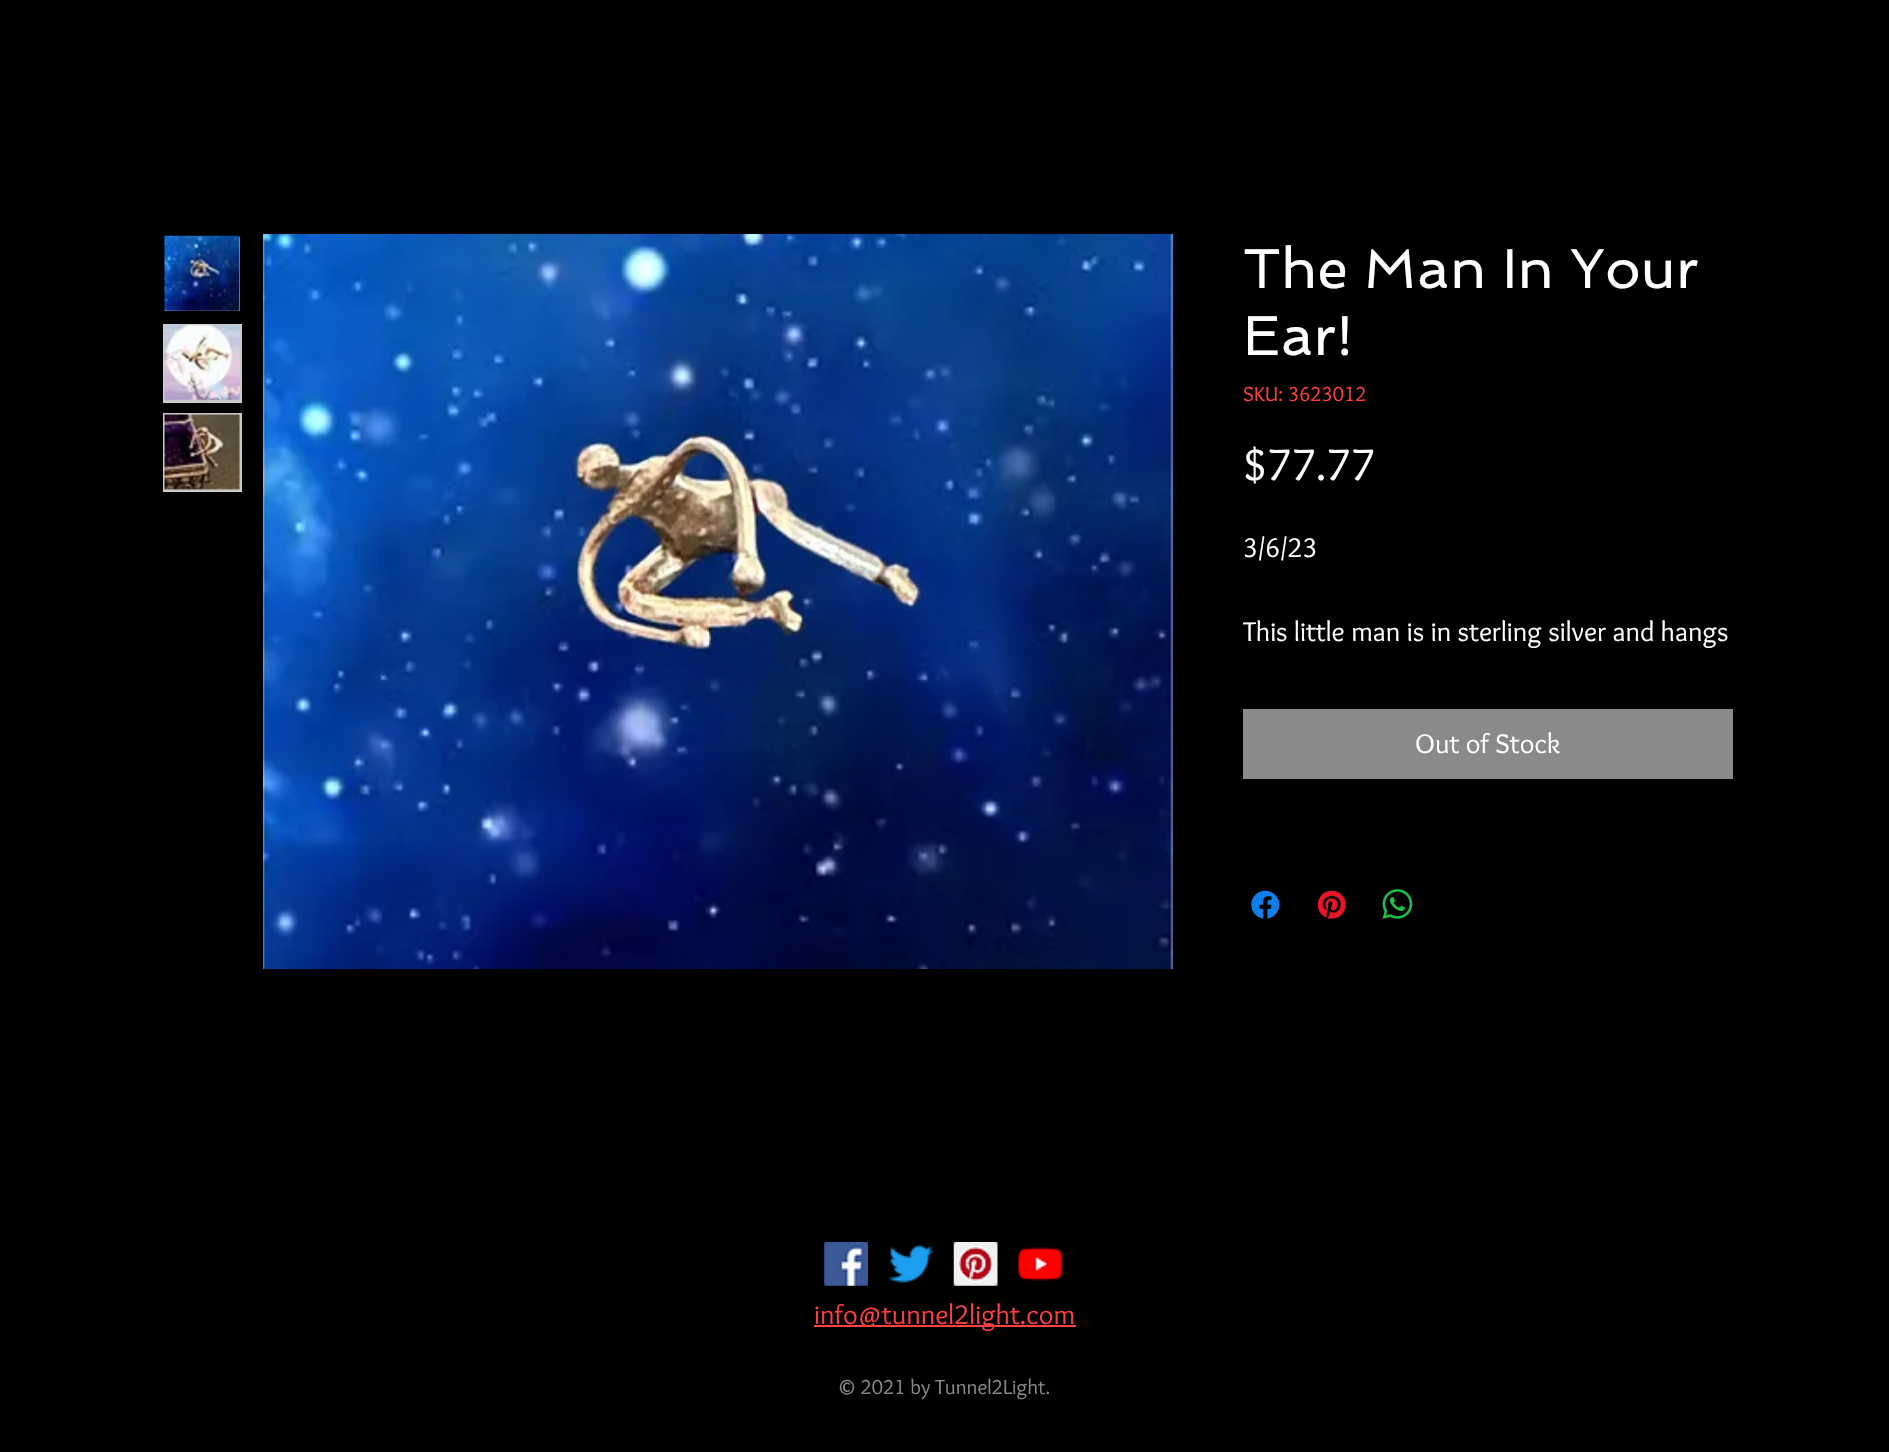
void draw(SkCanvas* canvas) {
	SkPaint paint;
	paint.setAntiAlias(true);
	canvas->clear(0xff000000);
	paint.setColor(0xffcccccc);
	canvas->drawRect(SkRect::MakeXYWH(165, 237, 75, 74), paint);
	canvas->drawImageRect(SkImages::DeferredFromEncodedData(SkData::MakeFromFileName("img1.png")), SkRect::MakeXYWH(164, 235, 77, 77), SkSamplingOptions());
	canvas->drawRect(SkRect::MakeXYWH(163, 324, 79, 79), paint);
	canvas->drawImageRect(SkImages::DeferredFromEncodedData(SkData::MakeFromFileName("img2.png")), SkRect::MakeXYWH(164, 324, 76, 77), SkSamplingOptions());
	canvas->drawRect(SkRect::MakeXYWH(163, 413, 79, 79), paint);
	canvas->drawImageRect(SkImages::DeferredFromEncodedData(SkData::MakeFromFileName("img3.png")), SkRect::MakeXYWH(164, 413, 77, 77), SkSamplingOptions());
	canvas->drawImageRect(SkImages::DeferredFromEncodedData(SkData::MakeFromFileName("img4.png")), SkRect::MakeXYWH(263, 234, 910, 735), SkSamplingOptions());
	SkFont f1(fontMgr->matchFamilyStyle("Spinnaker", SkFontStyle::Normal()), 56);
	f1.setSubpixel(true);
	paint.setColor(0xffffffff);
	canvas->drawString("The Man In Your", 1243, 288, f1, paint);
	canvas->drawString("Ear!", 1243, 355, f1, paint);
	SkFont f2(fontMgr->matchFamilyStyle("Overlock", SkFontStyle::Normal()), 21);
	f2.setSubpixel(true);
	paint.setColor(0xffff4040);
	canvas->drawString("SKU: 3623012", 1243, 401, f2, paint);
	SkFont f3(fontMgr->matchFamilyStyle("Overlock", SkFontStyle::Normal()), 45.5);
	f3.setSubpixel(true);
	paint.setColor(0xffffffff);
	canvas->drawString("$77.77", 1243, 480, f3, paint);
	SkFont f4(fontMgr->matchFamilyStyle("Overlock", SkFontStyle::Normal()), 28);
	f4.setSubpixel(true);
	canvas->drawString("3/6/23", 1243, 557, f4, paint);
	canvas->save();
	canvas->clipRect(SkRect::MakeXYWH(1243, 527, 490, 126));
	canvas->drawString("This little man is in sterling silver and hangs", 1243, 641, f4, paint);
	canvas->restore();
	paint.setColor(0xff8b8a8a);
	canvas->drawRect(SkRect::MakeXYWH(1243, 709, 490, 70), paint);
	paint.setColor(0xffffffff);
	canvas->drawString("Out of Stock", 1415, 753, f4, paint);
	canvas->drawImageRect(SkImages::DeferredFromEncodedData(SkData::MakeFromFileName("img5.png")), SkRect::MakeXYWH(1251, 890, 29, 29), SkSamplingOptions());
	canvas->drawImageRect(SkImages::DeferredFromEncodedData(SkData::MakeFromFileName("img6.png")), SkRect::MakeXYWH(1317, 890, 29, 29), SkSamplingOptions());
	canvas->drawImageRect(SkImages::DeferredFromEncodedData(SkData::MakeFromFileName("img7.png")), SkRect::MakeXYWH(1382, 889, 31, 30), SkSamplingOptions());
	canvas->drawImageRect(SkImages::DeferredFromEncodedData(SkData::MakeFromFileName("img8.png")), SkRect::MakeXYWH(824, 1242, 44, 44), SkSamplingOptions());
	canvas->drawImageRect(SkImages::DeferredFromEncodedData(SkData::MakeFromFileName("img9.png")), SkRect::MakeXYWH(889, 1245, 44, 38), SkSamplingOptions());
	canvas->drawImageRect(SkImages::DeferredFromEncodedData(SkData::MakeFromFileName("img10.png")), SkRect::MakeXYWH(953, 1242, 45, 44), SkSamplingOptions());
	canvas->drawImageRect(SkImages::DeferredFromEncodedData(SkData::MakeFromFileName("img11.png")), SkRect::MakeXYWH(1018, 1247, 45, 34), SkSamplingOptions());
	paint.setColor(0xffff4040);
	canvas->drawRect(SkRect::MakeXYWH(814, 1325, 262, 2), paint);
	canvas->drawString("info@tunnel2light.com", 814, 1324, f4, paint);
	paint.setColor(0xff8b8a8a);
	canvas->drawString("© 2021 by Tunnel2Light.", 837, 1394, f2, paint);
}
